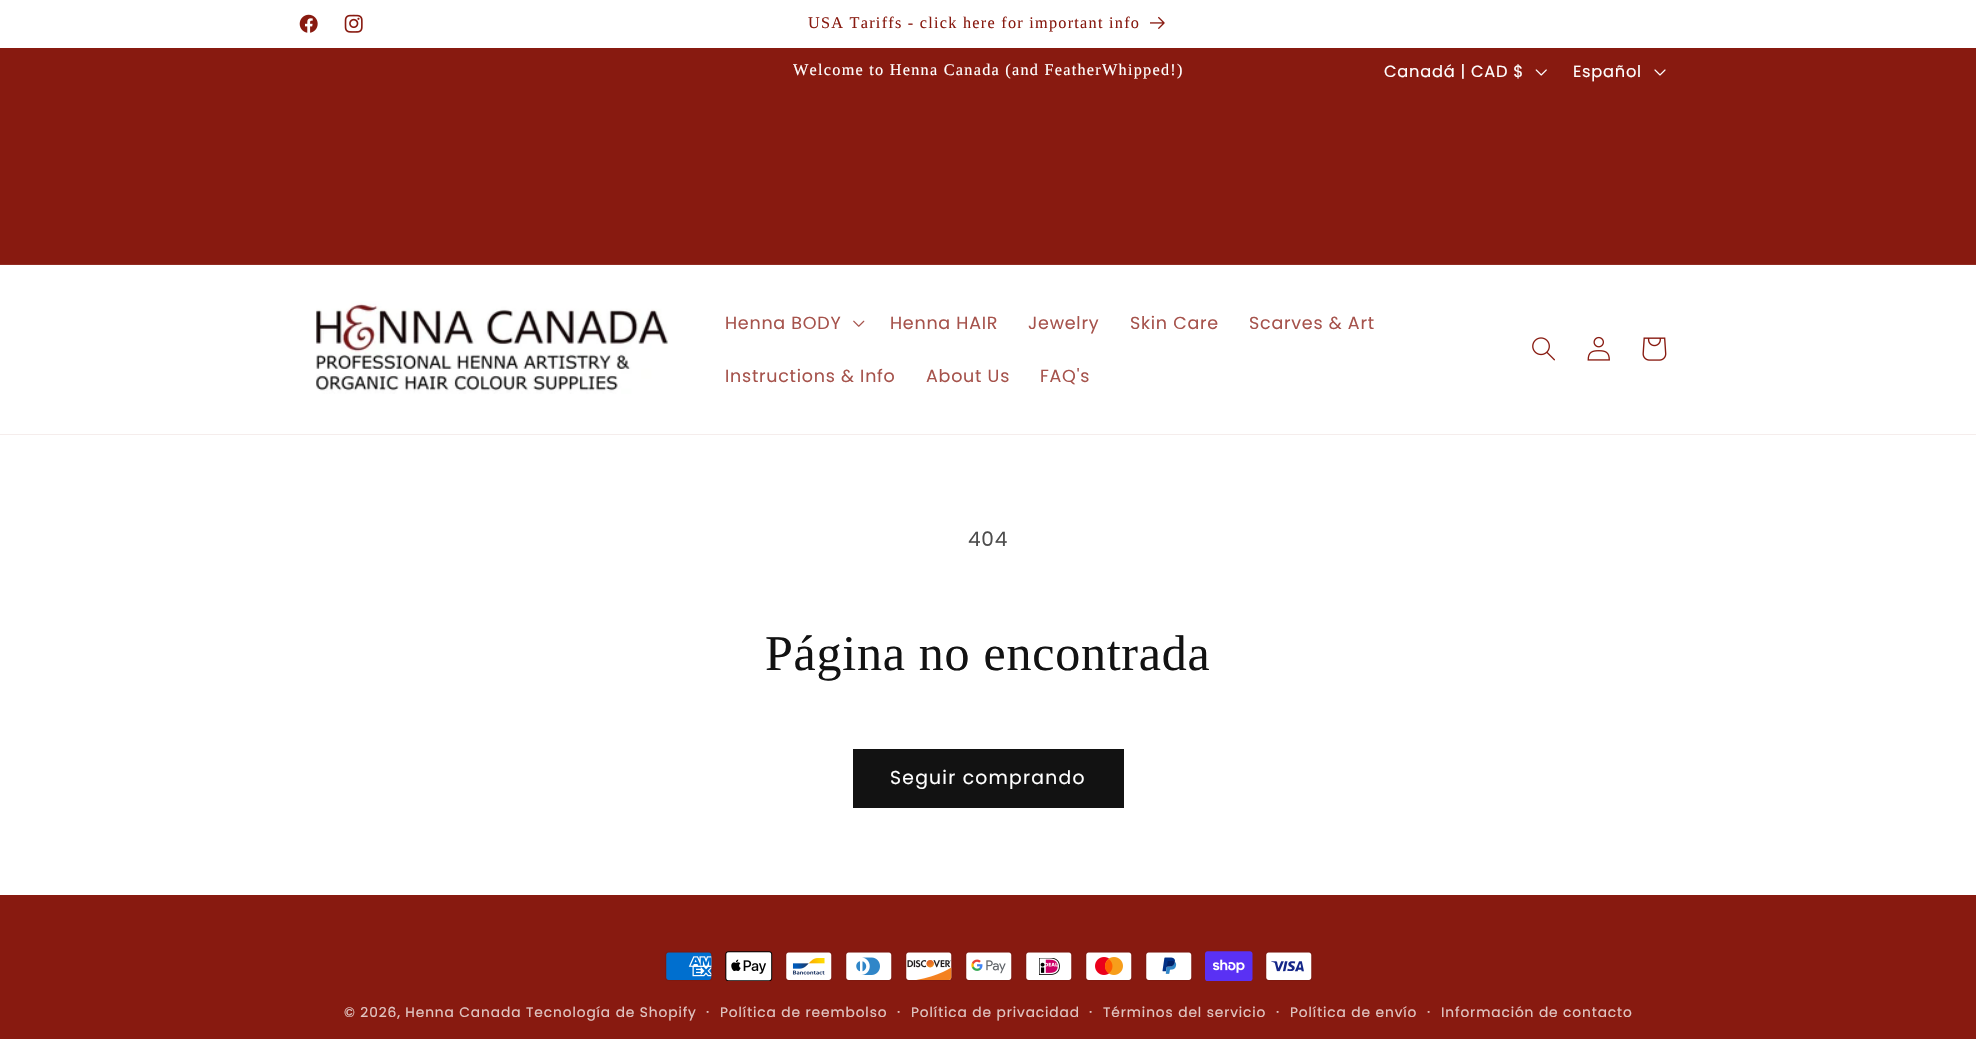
void draw(SkCanvas* canvas) {
	SkPaint paint;
	paint.setAntiAlias(true);
	auto spacedText = [&](const char* s, float x, float y, const SkFont& font, const SkPaint& ink, float letter, float word) {
		std::vector<SkGlyphID> glyphs(font.countText(s, strlen(s), SkTextEncoding::kUTF8));
		std::vector<float> xs(glyphs.size());
		font.textToGlyphs(s, strlen(s), SkTextEncoding::kUTF8, glyphs);
		font.getXPos(glyphs, xs, x);
		float extra = 0;
		for (size_t i = 0; i < glyphs.size(); i++) {
			xs[i] += extra;
			extra += letter + word * (glyphs[i] == font.unicharToGlyph(' '));
		}
		canvas->drawTextBlob(SkTextBlob::MakeFromPosHGlyphs(glyphs, xs, y, font), 0, 0, ink);
	};
	canvas->clear(0xffffffff);
	canvas->drawImageRect(SkImages::DeferredFromEncodedData(SkData::MakeFromFileName("img1.png")), SkRect::MakeXYWH(299, 14, 19, 19), SkSamplingOptions());
	canvas->drawImageRect(SkImages::DeferredFromEncodedData(SkData::MakeFromFileName("img2.png")), SkRect::MakeXYWH(344, 14, 19, 19), SkSamplingOptions());
	SkFont f1(fontMgr->matchFamilyStyle("Liberation Serif", SkFontStyle::Normal()), 16.25);
	f1.setSubpixel(true);
	paint.setColor(0xff881a10);
	spacedText("USA Tariffs - click here for important info", 808, 28, f1, paint, 1.25, 0);
	canvas->drawImageRect(SkImages::DeferredFromEncodedData(SkData::MakeFromFileName("img3.png")), SkRect::MakeXYWH(1150, 16, 15, 13), SkSamplingOptions());
	canvas->drawRect(SkRect::MakeXYWH(0, 48, 1976, 216), paint);
	paint.setColor(0xff922c23);
	canvas->drawRect(SkRect::MakeXYWH(0, 264, 1976, 1), paint);
	paint.setColor(0xffffffff);
	spacedText("Welcome to Henna Canada (and FeatherWhipped!)", 793, 75, f1, paint, 1.25, 0);
	SkFont f2(fontMgr->matchFamilyStyle("Poppins", SkFontStyle::Normal()), 16.25);
	f2.setSubpixel(true);
	spacedText("Canadá | CAD $", 1384, 77, f2, paint, 0.75, 0);
	canvas->drawImageRect(SkImages::DeferredFromEncodedData(SkData::MakeFromFileName("img4.png")), SkRect::MakeXYWH(1535, 69, 12, 7), SkSamplingOptions());
	spacedText("Español", 1573, 77, f2, paint, 0.75, 0);
	canvas->drawImageRect(SkImages::DeferredFromEncodedData(SkData::MakeFromFileName("img5.png")), SkRect::MakeXYWH(1654, 69, 12, 7), SkSamplingOptions());
	paint.setColor(0xfff5edec);
	canvas->drawRect(SkRect::MakeXYWH(0, 434, 1976, 1), paint);
	canvas->drawImageRect(SkImages::DeferredFromEncodedData(SkData::MakeFromFileName("img6.png")), SkRect::MakeXYWH(316, 301, 353, 93), SkSamplingOptions());
	SkFont f3(fontMgr->matchFamilyStyle("Poppins", SkFontStyle::Normal()), 17.5);
	f3.setSubpixel(true);
	paint.setColor(0xffa6534c);
	spacedText("Henna BODY", 725, 329, f3, paint, 0.75, 0);
	canvas->drawImageRect(SkImages::DeferredFromEncodedData(SkData::MakeFromFileName("img7.png")), SkRect::MakeXYWH(853, 320, 12, 7), SkSamplingOptions());
	spacedText("Henna HAIR", 890, 329, f3, paint, 0.75, 0);
	spacedText("Jewelry", 1028, 329, f3, paint, 0.75, 0);
	spacedText("Skin Care", 1130, 329, f3, paint, 0.75, 0);
	spacedText("Scarves & Art", 1249, 329, f3, paint, 0.75, 0);
	spacedText("Instructions & Info", 725, 382, f3, paint, 0.75, 0);
	spacedText("About Us", 926, 382, f3, paint, 0.75, 0);
	spacedText("FAQ's", 1040, 382, f3, paint, 0.75, 0);
	canvas->drawImageRect(SkImages::DeferredFromEncodedData(SkData::MakeFromFileName("img8.png")), SkRect::MakeXYWH(1532, 337, 23, 24), SkSamplingOptions());
	canvas->drawImageRect(SkImages::DeferredFromEncodedData(SkData::MakeFromFileName("img9.png")), SkRect::MakeXYWH(1587, 336, 23, 25), SkSamplingOptions());
	canvas->drawImageRect(SkImages::DeferredFromEncodedData(SkData::MakeFromFileName("img10.png")), SkRect::MakeXYWH(1642, 337, 25, 24), SkSamplingOptions());
	SkFont f4(fontMgr->matchFamilyStyle("Poppins", SkFontStyle::Normal()), 20);
	f4.setSubpixel(true);
	paint.setColor(0xff4d4d4d);
	spacedText("404", 968, 546, f4, paint, 0.75, 0);
	SkFont f5(fontMgr->matchFamilyStyle("Liberation Serif", SkFontStyle::Normal()), 50);
	f5.setSubpixel(true);
	paint.setColor(0xff121212);
	spacedText("Página no encontrada", 765, 670, f5, paint, 0.75, 0);
	canvas->drawRect(SkRect::MakeXYWH(853, 749, 271, 59), paint);
	SkFont f6(fontMgr->matchFamilyStyle("Poppins", SkFontStyle::Normal()), 18.75);
	f6.setSubpixel(true);
	paint.setColor(0xffffffff);
	spacedText("Seguir comprando", 890, 784, f6, paint, 1.25, 0);
	paint.setColor(0xff881a10);
	canvas->drawRect(SkRect::MakeXYWH(0, 895, 1976, 144), paint);
	canvas->drawImageRect(SkImages::DeferredFromEncodedData(SkData::MakeFromFileName("img11.png")), SkRect::MakeXYWH(665, 951, 48, 30), SkSamplingOptions());
	canvas->drawImageRect(SkImages::DeferredFromEncodedData(SkData::MakeFromFileName("img12.png")), SkRect::MakeXYWH(725, 951, 48, 30), SkSamplingOptions());
	canvas->drawImageRect(SkImages::DeferredFromEncodedData(SkData::MakeFromFileName("img13.png")), SkRect::MakeXYWH(785, 951, 48, 30), SkSamplingOptions());
	canvas->drawImageRect(SkImages::DeferredFromEncodedData(SkData::MakeFromFileName("img14.png")), SkRect::MakeXYWH(845, 951, 48, 30), SkSamplingOptions());
	canvas->drawImageRect(SkImages::DeferredFromEncodedData(SkData::MakeFromFileName("img15.png")), SkRect::MakeXYWH(905, 951, 48, 30), SkSamplingOptions());
	canvas->drawImageRect(SkImages::DeferredFromEncodedData(SkData::MakeFromFileName("img16.png")), SkRect::MakeXYWH(965, 951, 48, 30), SkSamplingOptions());
	canvas->drawImageRect(SkImages::DeferredFromEncodedData(SkData::MakeFromFileName("img17.png")), SkRect::MakeXYWH(1025, 951, 48, 30), SkSamplingOptions());
	canvas->drawImageRect(SkImages::DeferredFromEncodedData(SkData::MakeFromFileName("img18.png")), SkRect::MakeXYWH(1085, 951, 48, 30), SkSamplingOptions());
	canvas->drawImageRect(SkImages::DeferredFromEncodedData(SkData::MakeFromFileName("img19.png")), SkRect::MakeXYWH(1145, 951, 48, 30), SkSamplingOptions());
	canvas->drawImageRect(SkImages::DeferredFromEncodedData(SkData::MakeFromFileName("img20.png")), SkRect::MakeXYWH(1205, 951, 48, 30), SkSamplingOptions());
	canvas->drawImageRect(SkImages::DeferredFromEncodedData(SkData::MakeFromFileName("img21.png")), SkRect::MakeXYWH(1265, 951, 48, 30), SkSamplingOptions());
	SkFont f7(fontMgr->matchFamilyStyle("Poppins", SkFontStyle::Normal()), 13.75);
	f7.setSubpixel(true);
	paint.setColor(0xffe1c6c3);
	spacedText("© 2026, Henna Canada", 344, 1017, f7, paint, 0.9, 0);
	spacedText("Tecnología de Shopify", 526, 1017, f7, paint, 0.9, 0);
	SkFont f8(fontMgr->matchFamilyStyle("Poppins", SkFontStyle::Normal()), 15);
	f8.setSubpixel(true);
	spacedText("·", 706, 1017, f8, paint, 0.9, 0);
	spacedText("Política de reembolso", 720, 1017, f7, paint, 0.9, 0);
	spacedText("·", 897, 1017, f8, paint, 0.9, 0);
	spacedText("Política de privacidad", 911, 1017, f7, paint, 0.9, 0);
	spacedText("·", 1089, 1017, f8, paint, 0.9, 0);
	spacedText("Términos del servicio", 1103, 1017, f7, paint, 0.9, 0);
	spacedText("·", 1276, 1017, f8, paint, 0.9, 0);
	spacedText("Política de envío", 1290, 1017, f7, paint, 0.9, 0);
	spacedText("·", 1427, 1017, f8, paint, 0.9, 0);
	spacedText("Información de contacto", 1441, 1017, f7, paint, 0.9, 0);
}
